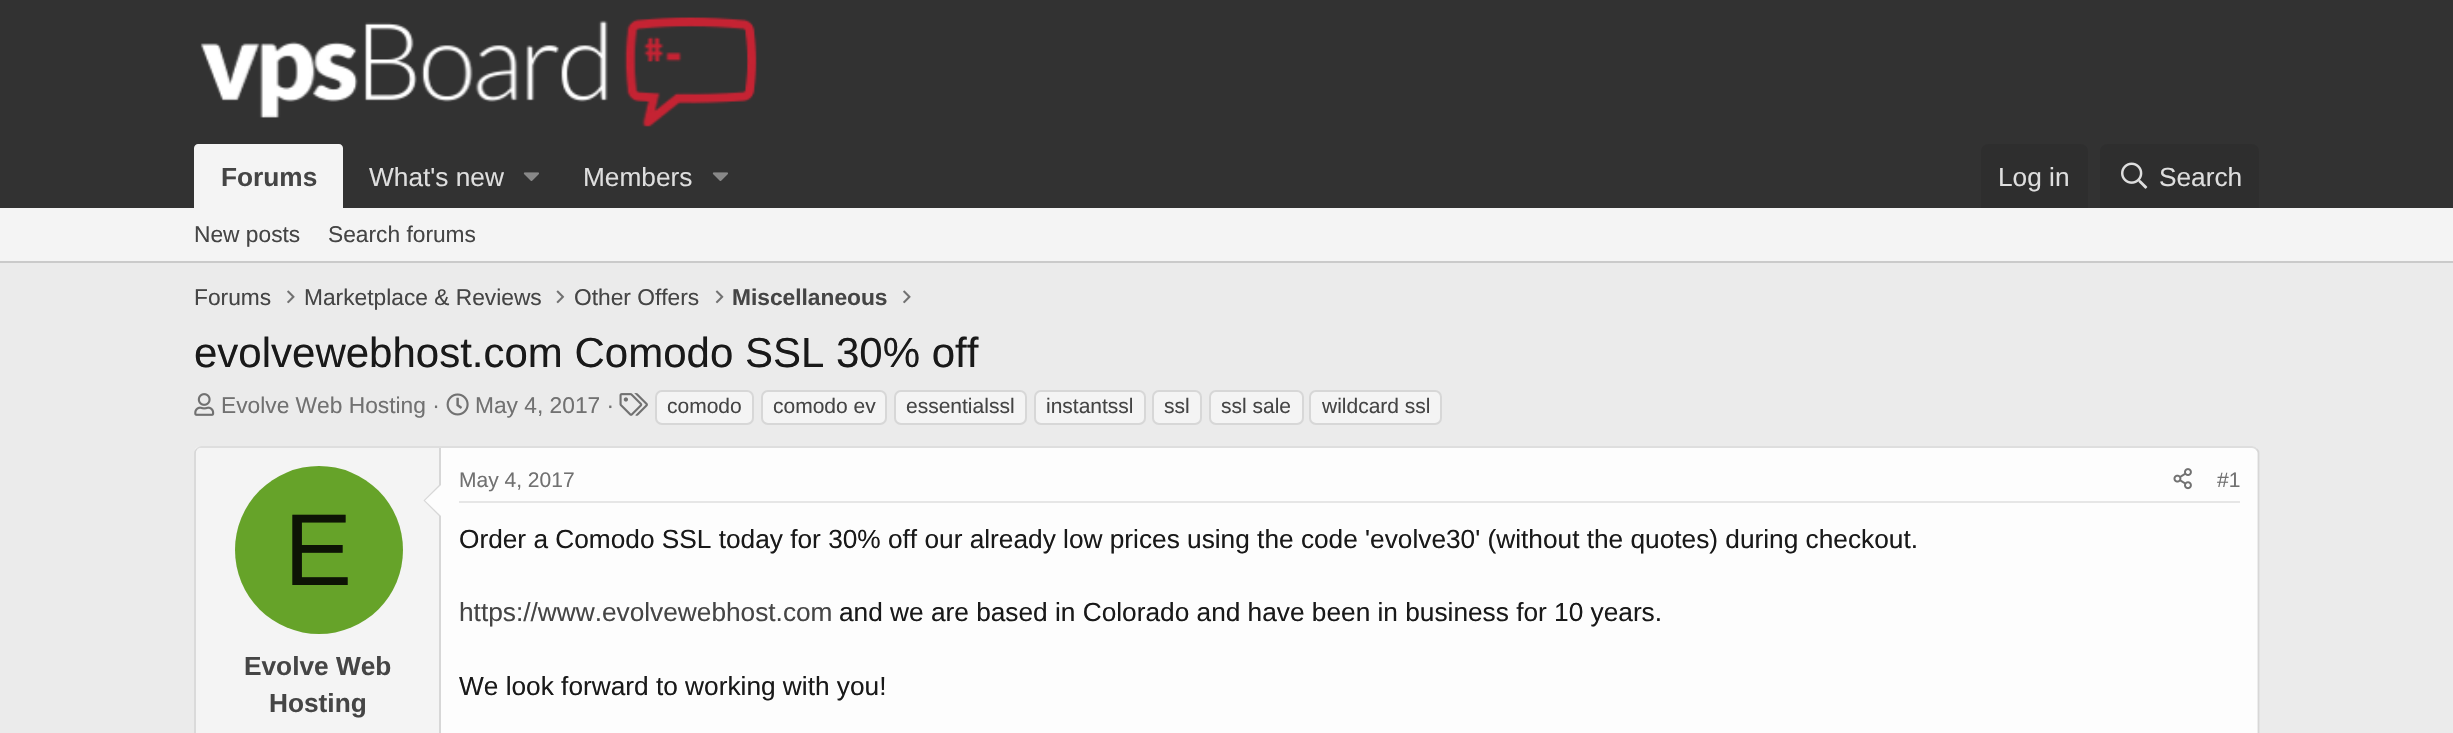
void draw(SkCanvas* canvas) {
	SkPaint paint;
	paint.setAntiAlias(true);
	auto svgPath = [&](const char* data, bool evenOdd = false) {
		SkPath result = *SkParsePath::FromSVGString(data);
		if (evenOdd) result.setFillType(SkPathFillType::kEvenOdd);
		return result;
	};
	canvas->clear(0xffebebeb);
	paint.setColor(0xff323232);
	canvas->drawRect(SkRect::MakeXYWH(0, 0, 2453, 208), paint);
	canvas->drawImageRect(SkImages::DeferredFromEncodedData(SkData::MakeFromFileName("img1.png")), SkRect::MakeXYWH(200, 17, 557, 110), SkSamplingOptions());
	paint.setColor(0xfff4f4f4);
	canvas->drawPath(svgPath("M198 144H339C341 144 343 146 343 148V208H194V148C194 146 196 144 198 144Z"), paint);
	SkFont f1(fontMgr->matchFamilyStyle("Liberation Sans", SkFontStyle::Bold()), 26.25);
	f1.setSubpixel(true);
	paint.setColor(0xff454545);
	canvas->drawString("Forums", 221, 186, f1, paint);
	SkFont f2(fontMgr->matchFamilyStyle("Liberation Sans", SkFontStyle::Normal()), 26.25);
	f2.setSubpixel(true);
	paint.setColor(0xffdedede);
	canvas->drawString("What's new", 369, 186, f2, paint);
	canvas->drawImageRect(SkImages::DeferredFromEncodedData(SkData::MakeFromFileName("img2.png")), SkRect::MakeXYWH(523, 172, 16, 9), SkSamplingOptions());
	canvas->drawString("Members", 583, 186, f2, paint);
	canvas->drawImageRect(SkImages::DeferredFromEncodedData(SkData::MakeFromFileName("img2.png")), SkRect::MakeXYWH(712, 172, 16, 9), SkSamplingOptions());
	paint.setColor(0xff2e2e2e);
	canvas->drawPath(svgPath("M1988 144H2081C2085 144 2088 147 2088 151V208H1981V151C1981 147 1984 144 1988 144Z"), paint);
	paint.setColor(0xffdedede);
	canvas->drawString("Log in", 1998, 186, f2, paint);
	paint.setColor(0xff2e2e2e);
	canvas->drawPath(svgPath("M2107 144H2252C2256 144 2259 147 2259 151V208H2100V151C2100 147 2103 144 2107 144Z"), paint);
	canvas->drawImageRect(SkImages::DeferredFromEncodedData(SkData::MakeFromFileName("img3.png")), SkRect::MakeXYWH(2121, 162, 27, 27), SkSamplingOptions());
	paint.setColor(0xffdedede);
	canvas->drawString("Search", 2159, 186, f2, paint);
	paint.setColor(0xfff4f4f4);
	canvas->drawRect(SkRect::MakeXYWH(0, 208, 2453, 53), paint);
	paint.setColor(0xffcacaca);
	canvas->drawRect(SkRect::MakeXYWH(0, 261, 2453, 2), paint);
	SkFont f3(fontMgr->matchFamilyStyle("Liberation Sans", SkFontStyle::Normal()), 22.75);
	f3.setSubpixel(true);
	paint.setColor(0xff454545);
	canvas->drawString("New posts", 194, 242, f3, paint);
	canvas->drawString("Search forums", 328, 242, f3, paint);
	canvas->drawString("Forums", 194, 305, f3, paint);
	canvas->drawImageRect(SkImages::DeferredFromEncodedData(SkData::MakeFromFileName("img4.png")), SkRect::MakeXYWH(287, 290, 8, 14), SkSamplingOptions());
	canvas->drawString("Marketplace & Reviews", 304, 305, f3, paint);
	canvas->drawImageRect(SkImages::DeferredFromEncodedData(SkData::MakeFromFileName("img5.png")), SkRect::MakeXYWH(556, 290, 9, 14), SkSamplingOptions());
	canvas->drawString("Other Offers", 574, 305, f3, paint);
	canvas->drawImageRect(SkImages::DeferredFromEncodedData(SkData::MakeFromFileName("img6.png")), SkRect::MakeXYWH(715, 290, 9, 14), SkSamplingOptions());
	SkFont f4(fontMgr->matchFamilyStyle("Liberation Sans", SkFontStyle::Bold()), 22.75);
	f4.setSubpixel(true);
	canvas->drawString("Miscellaneous", 732, 305, f4, paint);
	canvas->drawImageRect(SkImages::DeferredFromEncodedData(SkData::MakeFromFileName("img4.png")), SkRect::MakeXYWH(903, 290, 8, 14), SkSamplingOptions());
	SkFont f5(fontMgr->matchFamilyStyle("Liberation Sans", SkFontStyle::Normal()), 42);
	f5.setSubpixel(true);
	paint.setColor(0xff191919);
	canvas->drawString("evolvewebhost.com Comodo SSL 30% off", 194, 367, f5, paint);
	canvas->drawImageRect(SkImages::DeferredFromEncodedData(SkData::MakeFromFileName("img7.png")), SkRect::MakeXYWH(194, 393, 21, 23), SkSamplingOptions());
	paint.setColor(0xff717171);
	canvas->drawString("Evolve Web Hosting ·", 221, 413, f3, paint);
	canvas->drawImageRect(SkImages::DeferredFromEncodedData(SkData::MakeFromFileName("img8.png")), SkRect::MakeXYWH(446, 393, 23, 23), SkSamplingOptions());
	canvas->drawString("May 4, 2017 ·", 475, 413, f3, paint);
	canvas->drawImageRect(SkImages::DeferredFromEncodedData(SkData::MakeFromFileName("img9.png")), SkRect::MakeXYWH(619, 393, 29, 23), SkSamplingOptions());
	paint.setColor(0xfff4f4f4);
	canvas->drawRoundRect(SkRect::MakeXYWH(656, 391, 97, 33), 6, 6, paint);
	paint.setStroke(true);
	paint.setStrokeWidth(2);
	paint.setColor(0xffd7d7d7);
	canvas->drawRoundRect(SkRect::MakeXYWH(656, 391, 97, 33), 6, 6, paint);
	SkFont f6(fontMgr->matchFamilyStyle("Liberation Sans", SkFontStyle::Normal()), 21);
	f6.setSubpixel(true);
	paint.setStroke(false);
	paint.setColor(0xff454545);
	canvas->drawString("comodo", 667, 413, f6, paint);
	paint.setColor(0xfff4f4f4);
	canvas->drawRoundRect(SkRect::MakeXYWH(762, 391, 124, 33), 6, 6, paint);
	paint.setStroke(true);
	paint.setColor(0xffd7d7d7);
	canvas->drawRoundRect(SkRect::MakeXYWH(762, 391, 124, 33), 6, 6, paint);
	paint.setStroke(false);
	paint.setColor(0xff454545);
	canvas->drawString("comodo ev", 773, 413, f6, paint);
	paint.setColor(0xfff4f4f4);
	canvas->drawRoundRect(SkRect::MakeXYWH(895, 391, 131, 33), 6, 6, paint);
	paint.setStroke(true);
	paint.setColor(0xffd7d7d7);
	canvas->drawRoundRect(SkRect::MakeXYWH(895, 391, 131, 33), 6, 6, paint);
	paint.setStroke(false);
	paint.setColor(0xff454545);
	canvas->drawString("essentialssl", 906, 413, f6, paint);
	paint.setColor(0xfff4f4f4);
	canvas->drawRoundRect(SkRect::MakeXYWH(1035, 391, 110, 33), 6, 6, paint);
	paint.setStroke(true);
	paint.setColor(0xffd7d7d7);
	canvas->drawRoundRect(SkRect::MakeXYWH(1035, 391, 110, 33), 6, 6, paint);
	paint.setStroke(false);
	paint.setColor(0xff454545);
	canvas->drawString("instantssl", 1046, 413, f6, paint);
	paint.setColor(0xfff4f4f4);
	canvas->drawRoundRect(SkRect::MakeXYWH(1153, 391, 48, 33), 6, 6, paint);
	paint.setStroke(true);
	paint.setColor(0xffd7d7d7);
	canvas->drawRoundRect(SkRect::MakeXYWH(1153, 391, 48, 33), 6, 6, paint);
	paint.setStroke(false);
	paint.setColor(0xff454545);
	canvas->drawString("ssl", 1164, 413, f6, paint);
	paint.setColor(0xfff4f4f4);
	canvas->drawRoundRect(SkRect::MakeXYWH(1210, 391, 93, 33), 6, 6, paint);
	paint.setStroke(true);
	paint.setColor(0xffd7d7d7);
	canvas->drawRoundRect(SkRect::MakeXYWH(1210, 391, 93, 33), 6, 6, paint);
	paint.setStroke(false);
	paint.setColor(0xff454545);
	canvas->drawString("ssl sale", 1221, 413, f6, paint);
	paint.setColor(0xfff4f4f4);
	canvas->drawRoundRect(SkRect::MakeXYWH(1310, 391, 131, 33), 6, 6, paint);
	paint.setStroke(true);
	paint.setColor(0xffd7d7d7);
	canvas->drawRoundRect(SkRect::MakeXYWH(1310, 391, 131, 33), 6, 6, paint);
	paint.setStroke(false);
	paint.setColor(0xff454545);
	canvas->drawString("wildcard ssl", 1322, 413, f6, paint);
	paint.setColor(0xfffdfdfd);
	canvas->drawRoundRect(SkRect::MakeXYWH(194, 446, 2065, 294), 7, 7, paint);
	paint.setStroke(true);
	paint.setStrokeWidth(1.8);
	paint.setColor(0xffdedede);
	canvas->drawPath(svgPath("M197 449C198 448 199.5 447 201 447H2252C2254 447 2255.5 448 2256.5 449"), paint);
	paint.setColor(0xffd7d7d7);
	canvas->drawPath(svgPath("M2256.5 449C2257.5 450 2258.5 451.5 2258.5 453V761C2258.5 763 2257.5 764.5 2256.5 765.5"), paint);
	canvas->drawPath(svgPath("M197 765.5C196 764.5 195 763 195 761V453C195 451.5 196 450 197 449"), paint);
	paint.setStroke(false);
	paint.setColor(0xfff4f4f4);
	canvas->drawPath(svgPath("M201 448H441V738H201C198 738 196 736 196 733V453C196 450 198 448 201 448Z"), paint);
	paint.setColor(0xffd7d7d7);
	canvas->drawRect(SkRect::MakeXYWH(439, 448, 2, 285), paint);
	canvas->drawPath(svgPath("M441 483V518L423.5 500.5Z"), paint);
	paint.setColor(0xfffdfdfd);
	canvas->drawPath(svgPath("M441 485V516L425 500.5Z"), paint);
	paint.setColor(0xff66a329);
	canvas->drawCircle(319, 550, 84, paint);
	SkFont f7(fontMgr->matchFamilyStyle("Liberation Sans", SkFontStyle::Normal()), 102);
	f7.setSubpixel(true);
	paint.setColor(0xff0d1405);
	canvas->drawString("E", 284, 585, f7, paint);
	paint.setColor(0xff454545);
	canvas->drawString("Evolve Web", 244, 675, f1, paint);
	canvas->drawString("Hosting", 269, 712, f1, paint);
	paint.setColor(0xffe6e6e6);
	canvas->drawRect(SkRect::MakeXYWH(459, 501, 1781, 2), paint);
	paint.setColor(0xff717171);
	canvas->drawString("May 4, 2017", 459, 487, f6, paint);
	canvas->drawImageRect(SkImages::DeferredFromEncodedData(SkData::MakeFromFileName("img10.png")), SkRect::MakeXYWH(2173, 468, 19, 22), SkSamplingOptions());
	canvas->drawString("#1", 2217, 487, f6, paint);
	paint.setColor(0xff191919);
	canvas->drawString("Order a Comodo SSL today for 30% off our already low prices using the code 'evolve30' (without the quotes) during checkout.", 459, 548, f2, paint);
	paint.setColor(0xff454545);
	canvas->drawString("https://www.evolvewebhost.com", 459, 621, f2, paint);
	paint.setColor(0xff191919);
	canvas->drawString("and we are based in Colorado and have been in business for 10 years.", 839, 621, f2, paint);
	canvas->drawString("We look forward to working with you!", 459, 695, f2, paint);
}
